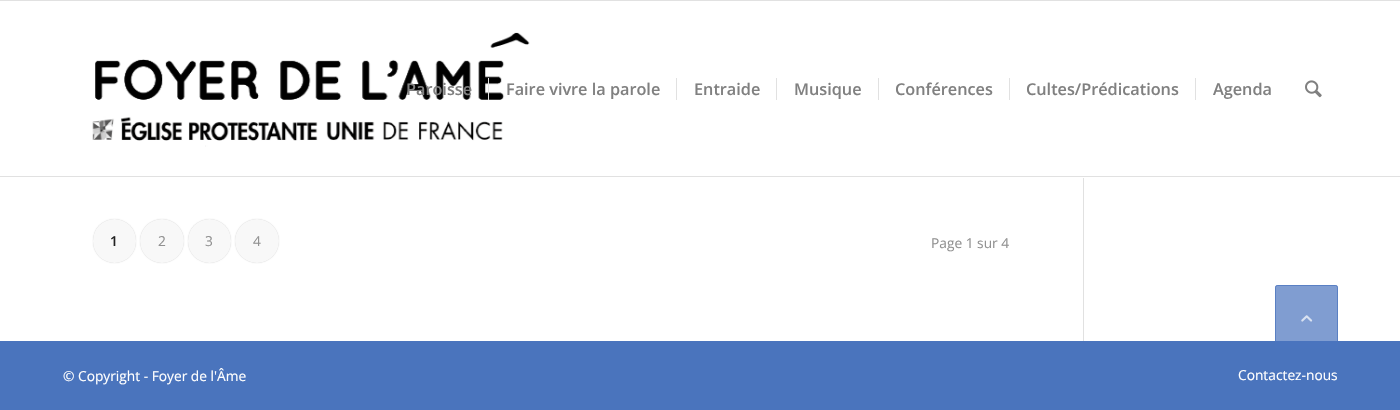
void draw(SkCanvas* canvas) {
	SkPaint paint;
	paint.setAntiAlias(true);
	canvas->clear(0xffffffff);
	paint.setColor(0xffe1e1e1);
	canvas->drawRect(SkRect::MakeXYWH(0, 0, 1400, 1), paint);
	canvas->drawRect(SkRect::MakeXYWH(0, 176, 1400, 1), paint);
	canvas->drawImageRect(SkImages::DeferredFromEncodedData(SkData::MakeFromFileName("img3.png")), SkRect::MakeXYWH(172, 77, 4, 4), SkSamplingOptions());
	canvas->drawImageRect(SkImages::DeferredFromEncodedData(SkData::MakeFromFileName("img1.png")), SkRect::MakeXYWH(92, 32, 438, 115), SkSamplingOptions());
	SkFont f1(fontMgr->matchFamilyStyle("Open Sans", SkFontStyle(600, SkFontStyle::kNormal_Width, SkFontStyle::kUpright_Slant)), 16.25);
	f1.setSubpixel(true);
	paint.setColor(0xff808080);
	canvas->drawString("Paroisse", 406, 95, f1, paint);
	canvas->drawString("Faire vivre la parole", 506, 95, f1, paint);
	paint.setColor(0xffe1e1e1);
	canvas->drawRect(SkRect::MakeXYWH(488, 78, 1, 22), paint);
	paint.setColor(0xff808080);
	canvas->drawString("Entraide", 694, 95, f1, paint);
	paint.setColor(0xffe1e1e1);
	canvas->drawRect(SkRect::MakeXYWH(676, 78, 1, 22), paint);
	paint.setColor(0xff808080);
	canvas->drawString("Musique", 794, 95, f1, paint);
	paint.setColor(0xffe1e1e1);
	canvas->drawRect(SkRect::MakeXYWH(776, 78, 1, 22), paint);
	paint.setColor(0xff808080);
	canvas->drawString("Conférences", 895, 95, f1, paint);
	paint.setColor(0xffe1e1e1);
	canvas->drawRect(SkRect::MakeXYWH(878, 78, 1, 22), paint);
	paint.setColor(0xff808080);
	canvas->drawString("Cultes/Prédications", 1026, 95, f1, paint);
	paint.setColor(0xffe1e1e1);
	canvas->drawRect(SkRect::MakeXYWH(1009, 78, 1, 22), paint);
	paint.setColor(0xff808080);
	canvas->drawString("Agenda", 1213, 95, f1, paint);
	paint.setColor(0xffe1e1e1);
	canvas->drawRect(SkRect::MakeXYWH(1195, 78, 1, 22), paint);
	canvas->drawImageRect(SkImages::DeferredFromEncodedData(SkData::MakeFromFileName("img2.png")), SkRect::MakeXYWH(1305, 80, 17, 18), SkSamplingOptions());
	canvas->drawRect(SkRect::MakeXYWH(1083, 178, 1, 163), paint);
	paint.setColor(0x33000000);
	paint.setMaskFilter(SkMaskFilter::MakeBlur(kNormal_SkBlurStyle, 0.5));
	canvas->drawRoundRect(SkRect::MakeXYWH(93, 219, 43, 44), 21.5, 21.5, paint);
	paint.setMaskFilter(nullptr);
	paint.setColor(0xfff8f8f8);
	canvas->drawRoundRect(SkRect::MakeXYWH(93, 219, 43, 44), 21.5, 21.5, paint);
	SkFont f2(fontMgr->matchFamilyStyle("Open Sans", SkFontStyle(600, SkFontStyle::kNormal_Width, SkFontStyle::kUpright_Slant)), 13.75);
	f2.setSubpixel(true);
	paint.setColor(0xff222222);
	canvas->drawString("1", 110, 246, f2, paint);
	paint.setColor(0x33000000);
	paint.setMaskFilter(SkMaskFilter::MakeBlur(kNormal_SkBlurStyle, 0.5));
	canvas->drawRoundRect(SkRect::MakeXYWH(140, 219, 44, 44), 22, 22, paint);
	paint.setMaskFilter(nullptr);
	paint.setColor(0xfff8f8f8);
	canvas->drawCircle(162, 241, 22, paint);
	SkFont f3(fontMgr->matchFamilyStyle("Open Sans", SkFontStyle::Normal()), 13.75);
	f3.setSubpixel(true);
	paint.setColor(0xff919191);
	canvas->drawString("2", 158, 246, f3, paint);
	paint.setColor(0x33000000);
	paint.setMaskFilter(SkMaskFilter::MakeBlur(kNormal_SkBlurStyle, 0.5));
	canvas->drawRoundRect(SkRect::MakeXYWH(188, 219, 43, 44), 21.5, 21.5, paint);
	paint.setMaskFilter(nullptr);
	paint.setColor(0xfff8f8f8);
	canvas->drawRoundRect(SkRect::MakeXYWH(188, 219, 43, 44), 21.5, 21.5, paint);
	paint.setColor(0xff919191);
	canvas->drawString("3", 205, 246, f3, paint);
	paint.setColor(0x33000000);
	paint.setMaskFilter(SkMaskFilter::MakeBlur(kNormal_SkBlurStyle, 0.5));
	canvas->drawRoundRect(SkRect::MakeXYWH(235, 219, 44, 44), 22, 22, paint);
	paint.setMaskFilter(nullptr);
	paint.setColor(0xfff8f8f8);
	canvas->drawCircle(257, 241, 22, paint);
	paint.setColor(0xff919191);
	canvas->drawString("4", 253, 246, f3, paint);
	canvas->drawString("Page 1 sur 4", 931, 248, f3, paint);
	paint.setColor(0xff4a74bd);
	canvas->drawRect(SkRect::MakeXYWH(0, 341, 1400, 69), paint);
	paint.setColor(0xffffffff);
	canvas->drawString("© Copyright - Foyer de l'Âme", 63, 381, f3, paint);
	canvas->drawString("Contactez-nous", 1238, 380, f3, paint);
	paint.setColor(0xb34a74bd);
	canvas->drawRoundRect(SkRect::MakeXYWH(1275, 285, 63, 63), 2.5, 2.5, paint);
	paint.setStroke(true);
	paint.setStrokeWidth(1);
	canvas->drawRoundRect(SkRect::MakeXYWH(1275.5, 285.5, 62, 62), 2, 2, paint);
	canvas->drawImageRect(SkImages::DeferredFromEncodedData(SkData::MakeFromFileName("img4.png")), SkRect::MakeXYWH(1301, 315, 12, 7), SkSamplingOptions());
}
